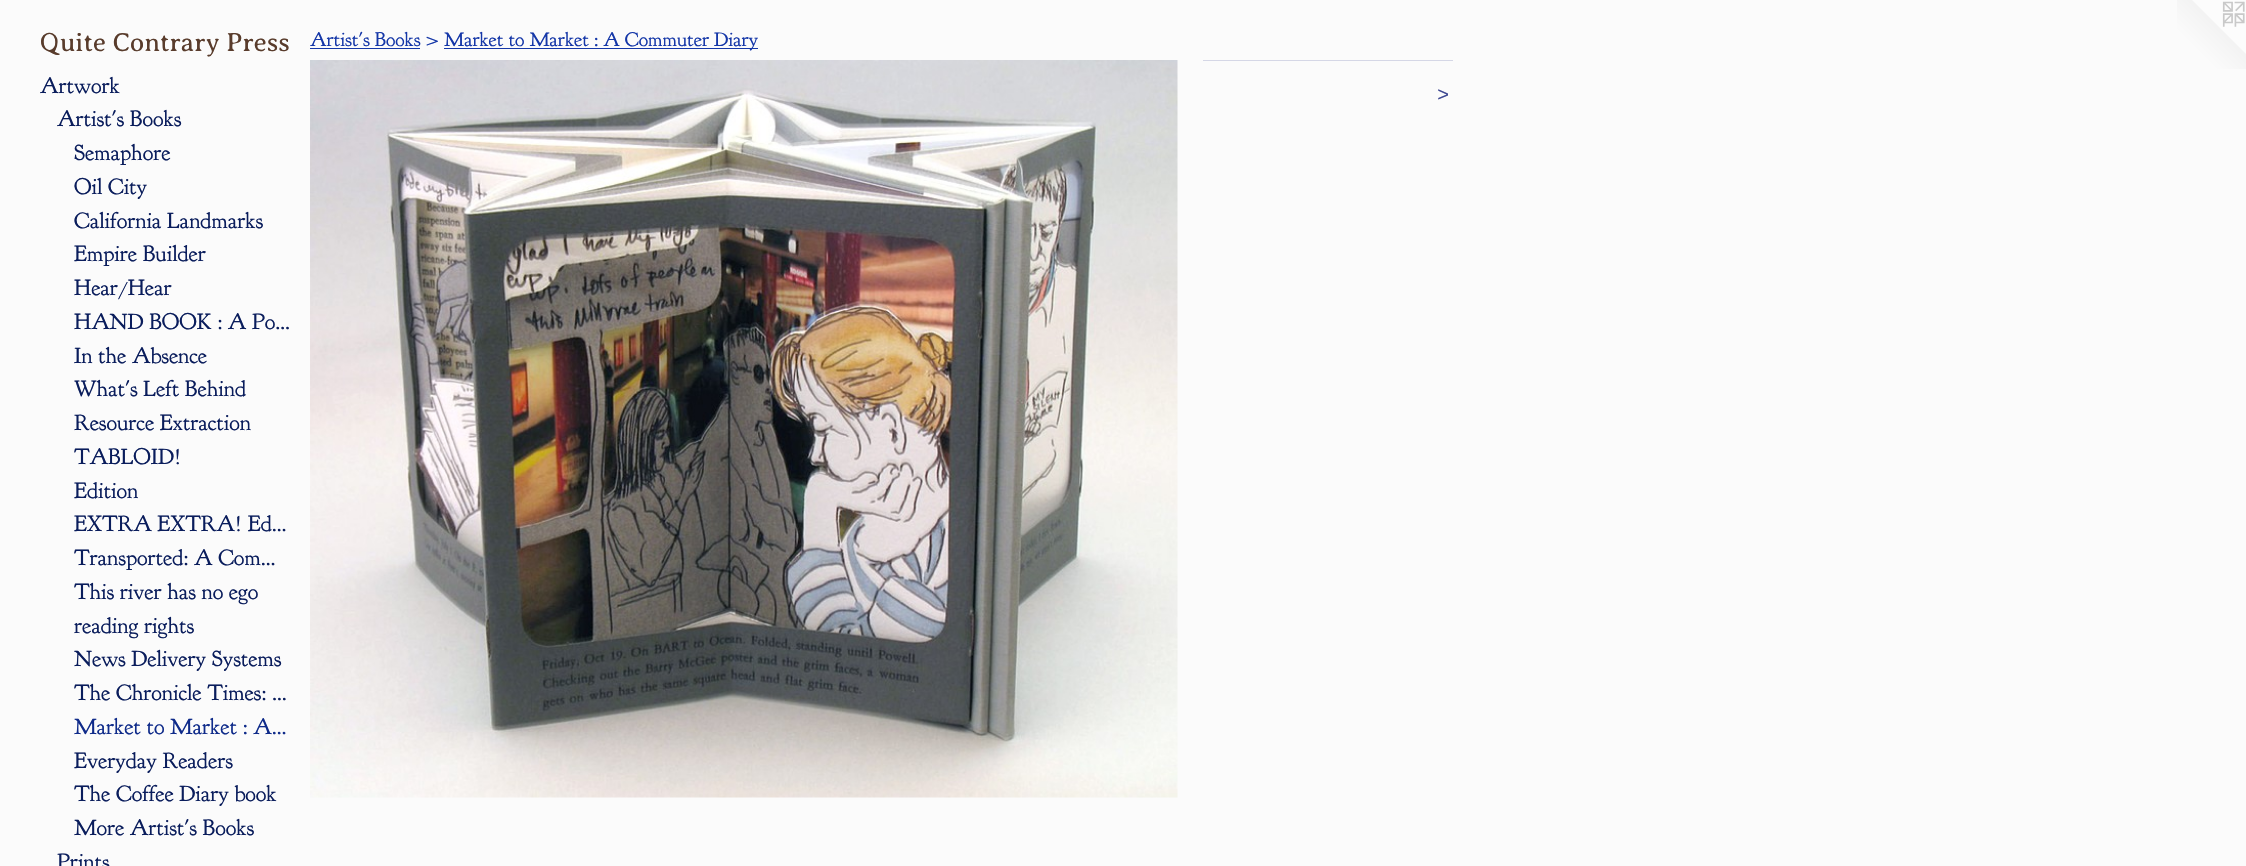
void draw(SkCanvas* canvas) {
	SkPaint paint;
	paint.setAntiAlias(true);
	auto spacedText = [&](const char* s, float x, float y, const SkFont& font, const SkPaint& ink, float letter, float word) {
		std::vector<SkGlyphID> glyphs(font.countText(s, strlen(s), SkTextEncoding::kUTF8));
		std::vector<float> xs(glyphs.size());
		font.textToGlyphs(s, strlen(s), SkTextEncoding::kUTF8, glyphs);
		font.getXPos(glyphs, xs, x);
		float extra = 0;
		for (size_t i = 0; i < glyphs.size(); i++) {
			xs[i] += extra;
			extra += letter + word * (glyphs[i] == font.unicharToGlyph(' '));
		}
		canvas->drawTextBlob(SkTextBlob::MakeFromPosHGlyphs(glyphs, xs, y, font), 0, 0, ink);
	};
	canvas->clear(0xfffbfbfb);
	SkFont f1(fontMgr->matchFamilyStyle("Averia Serif Libre", SkFontStyle(300, SkFontStyle::kNormal_Width, SkFontStyle::kUpright_Slant)), 26.25);
	f1.setSubpixel(true);
	paint.setColor(0xff593c2c);
	canvas->drawString("Quite Contrary Press", 40, 51, f1, paint);
	SkFont f2(fontMgr->matchFamilyStyle("Goudy Bookletter 1911", SkFontStyle::Normal()), 22.5);
	f2.setSubpixel(true);
	paint.setColor(0xff0a1d5c);
	canvas->drawString("Artwork", 40, 93, f2, paint);
	canvas->drawString("Artist's Books", 57, 126, f2, paint);
	canvas->drawString("Semaphore", 74, 160, f2, paint);
	canvas->drawString("Oil City", 74, 194, f2, paint);
	canvas->drawString("California Landmarks", 74, 228, f2, paint);
	canvas->drawString("Empire Builder", 74, 261, f2, paint);
	canvas->drawString("Hear/Hear", 74, 295, f2, paint);
	canvas->drawString("HAND BOOK : A Po…", 74, 329, f2, paint);
	canvas->drawString("In the Absence", 74, 363, f2, paint);
	canvas->drawString("What's Left Behind", 74, 396, f2, paint);
	canvas->drawString("Resource Extraction", 74, 430, f2, paint);
	canvas->drawString("TABLOID!", 74, 464, f2, paint);
	canvas->drawString("Edition", 74, 498, f2, paint);
	canvas->drawString("EXTRA EXTRA! Ed…", 74, 531, f2, paint);
	canvas->drawString("Transported: A Com…", 74, 565, f2, paint);
	canvas->drawString("This river has no ego", 74, 599, f2, paint);
	canvas->drawString("reading rights", 74, 633, f2, paint);
	canvas->drawString("News Delivery Systems", 74, 666, f2, paint);
	canvas->drawString("The Chronicle Times: …", 74, 700, f2, paint);
	paint.setColor(0xff0f2b8a);
	canvas->drawString("Market to Market : A…", 74, 734, f2, paint);
	paint.setColor(0xff0a1d5c);
	canvas->drawString("Everyday Readers", 74, 768, f2, paint);
	canvas->drawString("The Coffee Diary book", 74, 801, f2, paint);
	canvas->drawString("More Artist's Books", 74, 835, f2, paint);
	canvas->drawString("Prints", 57, 869, f2, paint);
	SkFont f3(fontMgr->matchFamilyStyle("Goudy Bookletter 1911", SkFontStyle::Normal()), 20);
	f3.setSubpixel(true);
	paint.setColor(0xff1537a8);
	canvas->drawString("Artist's Books >", 310, 46, f3, paint);
	canvas->drawRect(SkRect::MakeXYWH(310, 48, 110, 1), paint);
	canvas->drawRect(SkRect::MakeXYWH(444, 48, 314, 1), paint);
	canvas->drawString("Market to Market : A Commuter Diary", 444, 46, f3, paint);
	canvas->drawImageRect(SkImages::DeferredFromEncodedData(SkData::MakeFromFileName("img1.png")), SkRect::MakeXYWH(310, 60, 868, 738), SkSamplingOptions());
	paint.setColor(0xffd5d7e6);
	canvas->drawRect(SkRect::MakeXYWH(1203, 60, 250, 1), paint);
	SkFont f4(fontMgr->matchFamilyStyle("Liberation Sans", SkFontStyle::Italic()), 20);
	f4.setSubpixel(true);
	paint.setColor(0xff3f4992);
	spacedText(">", 1437, 101, f4, paint, 1, 0);
	canvas->drawImageRect(SkImages::DeferredFromEncodedData(SkData::MakeFromFileName("img2.png")), SkRect::MakeXYWH(2177, 0, 69, 69), SkSamplingOptions());
}
